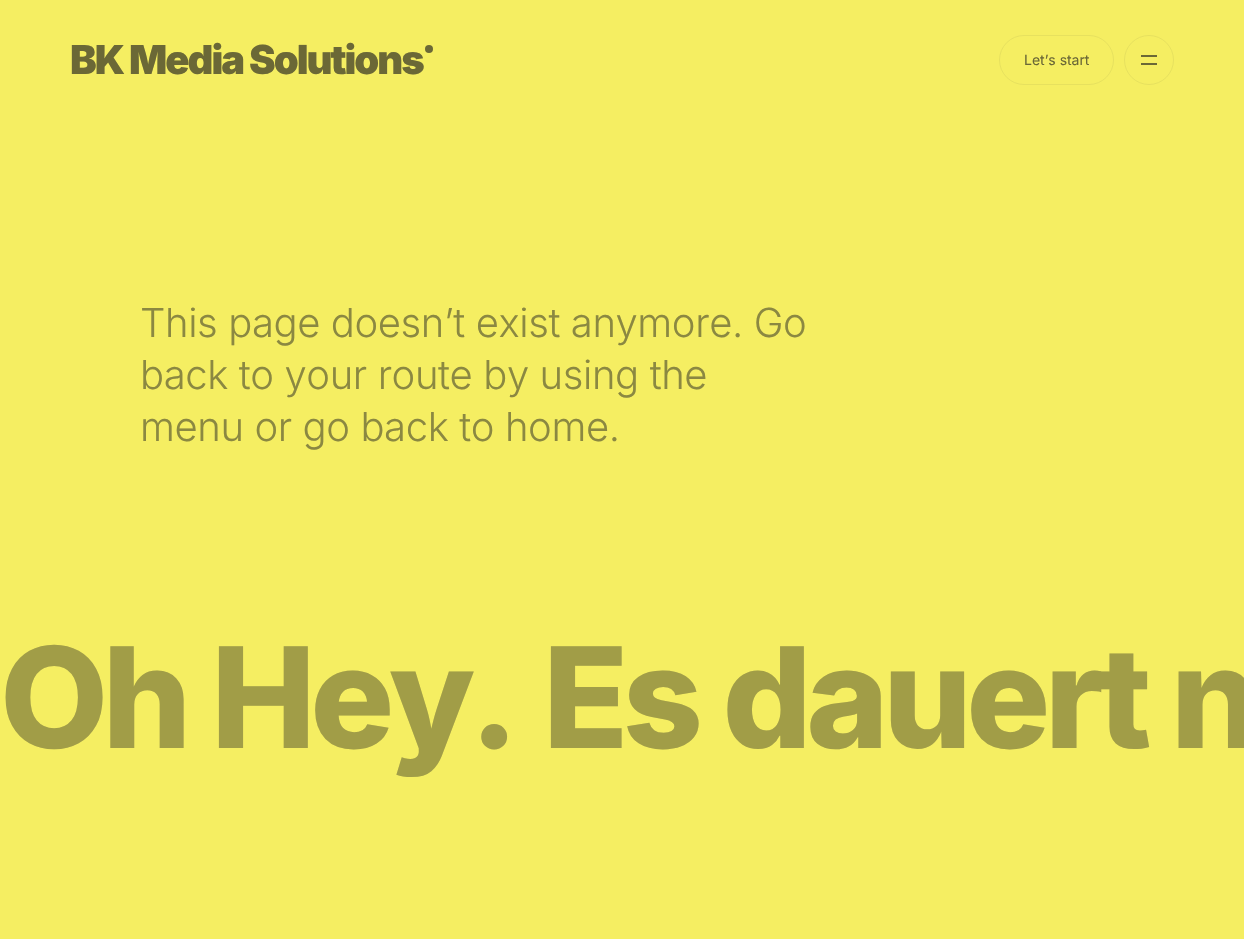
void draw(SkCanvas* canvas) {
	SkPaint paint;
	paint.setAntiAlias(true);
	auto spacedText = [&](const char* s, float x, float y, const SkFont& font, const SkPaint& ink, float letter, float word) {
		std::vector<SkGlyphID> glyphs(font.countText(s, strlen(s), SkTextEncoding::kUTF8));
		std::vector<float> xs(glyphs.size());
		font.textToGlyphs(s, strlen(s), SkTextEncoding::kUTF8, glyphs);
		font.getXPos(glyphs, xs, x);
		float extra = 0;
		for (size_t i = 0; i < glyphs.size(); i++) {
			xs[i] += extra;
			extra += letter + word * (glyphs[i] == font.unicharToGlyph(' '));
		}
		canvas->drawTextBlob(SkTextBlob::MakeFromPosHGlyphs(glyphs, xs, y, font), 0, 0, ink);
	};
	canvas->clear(0xfff5ee62);
	SkFont f1(fontMgr->matchFamilyStyle("Inter", SkFontStyle(900, SkFontStyle::kNormal_Width, SkFontStyle::kUpright_Slant)), 40);
	f1.setSubpixel(true);
	paint.setColor(0xff6b6836);
	spacedText("BK Media Solutions", 70, 74, f1, paint, -2, 0);
	canvas->drawCircle(429, 49, 4, paint);
	paint.setStroke(true);
	paint.setStrokeWidth(1);
	paint.setColor(0xffe7e15e);
	canvas->drawRoundRect(SkRect::MakeXYWH(999.5, 35.5, 114, 49), 24.5, 24.5, paint);
	SkFont f2(fontMgr->matchFamilyStyle("Inter", SkFontStyle::Normal()), 14);
	f2.setSubpixel(true);
	paint.setStroke(false);
	paint.setColor(0xff6b6836);
	canvas->drawString("Let’s start", 1024, 65, f2, paint);
	canvas->drawRect(SkRect::MakeXYWH(1141, 55, 16, 2), paint);
	canvas->drawRect(SkRect::MakeXYWH(1141, 63, 16, 2), paint);
	paint.setStroke(true);
	paint.setColor(0xffe7e15e);
	canvas->drawCircle(1149, 60, 24.5, paint);
	SkFont f3(fontMgr->matchFamilyStyle("Inter", SkFontStyle(300, SkFontStyle::kNormal_Width, SkFontStyle::kUpright_Slant)), 40);
	f3.setSubpixel(true);
	paint.setStroke(false);
	paint.setColor(0xff8b8841);
	spacedText("This page doesn’t exist anymore. Go", 140, 337, f3, paint, -0.4, 0);
	spacedText("back to your route by using the", 140, 389, f3, paint, -0.4, 0);
	spacedText("menu or go back to home.", 140, 441, f3, paint, -0.4, 0);
	SkFont f4(fontMgr->matchFamilyStyle("Inter", SkFontStyle(800, SkFontStyle::kNormal_Width, SkFontStyle::kUpright_Slant)), 140);
	f4.setSubpixel(true);
	paint.setColor(0xffa19d47);
	spacedText("Oh Hey.", 0, 748, f4, paint, -5.6, 0);
	spacedText("Es dauert n", 543, 748, f4, paint, -5.6, 0);
}
